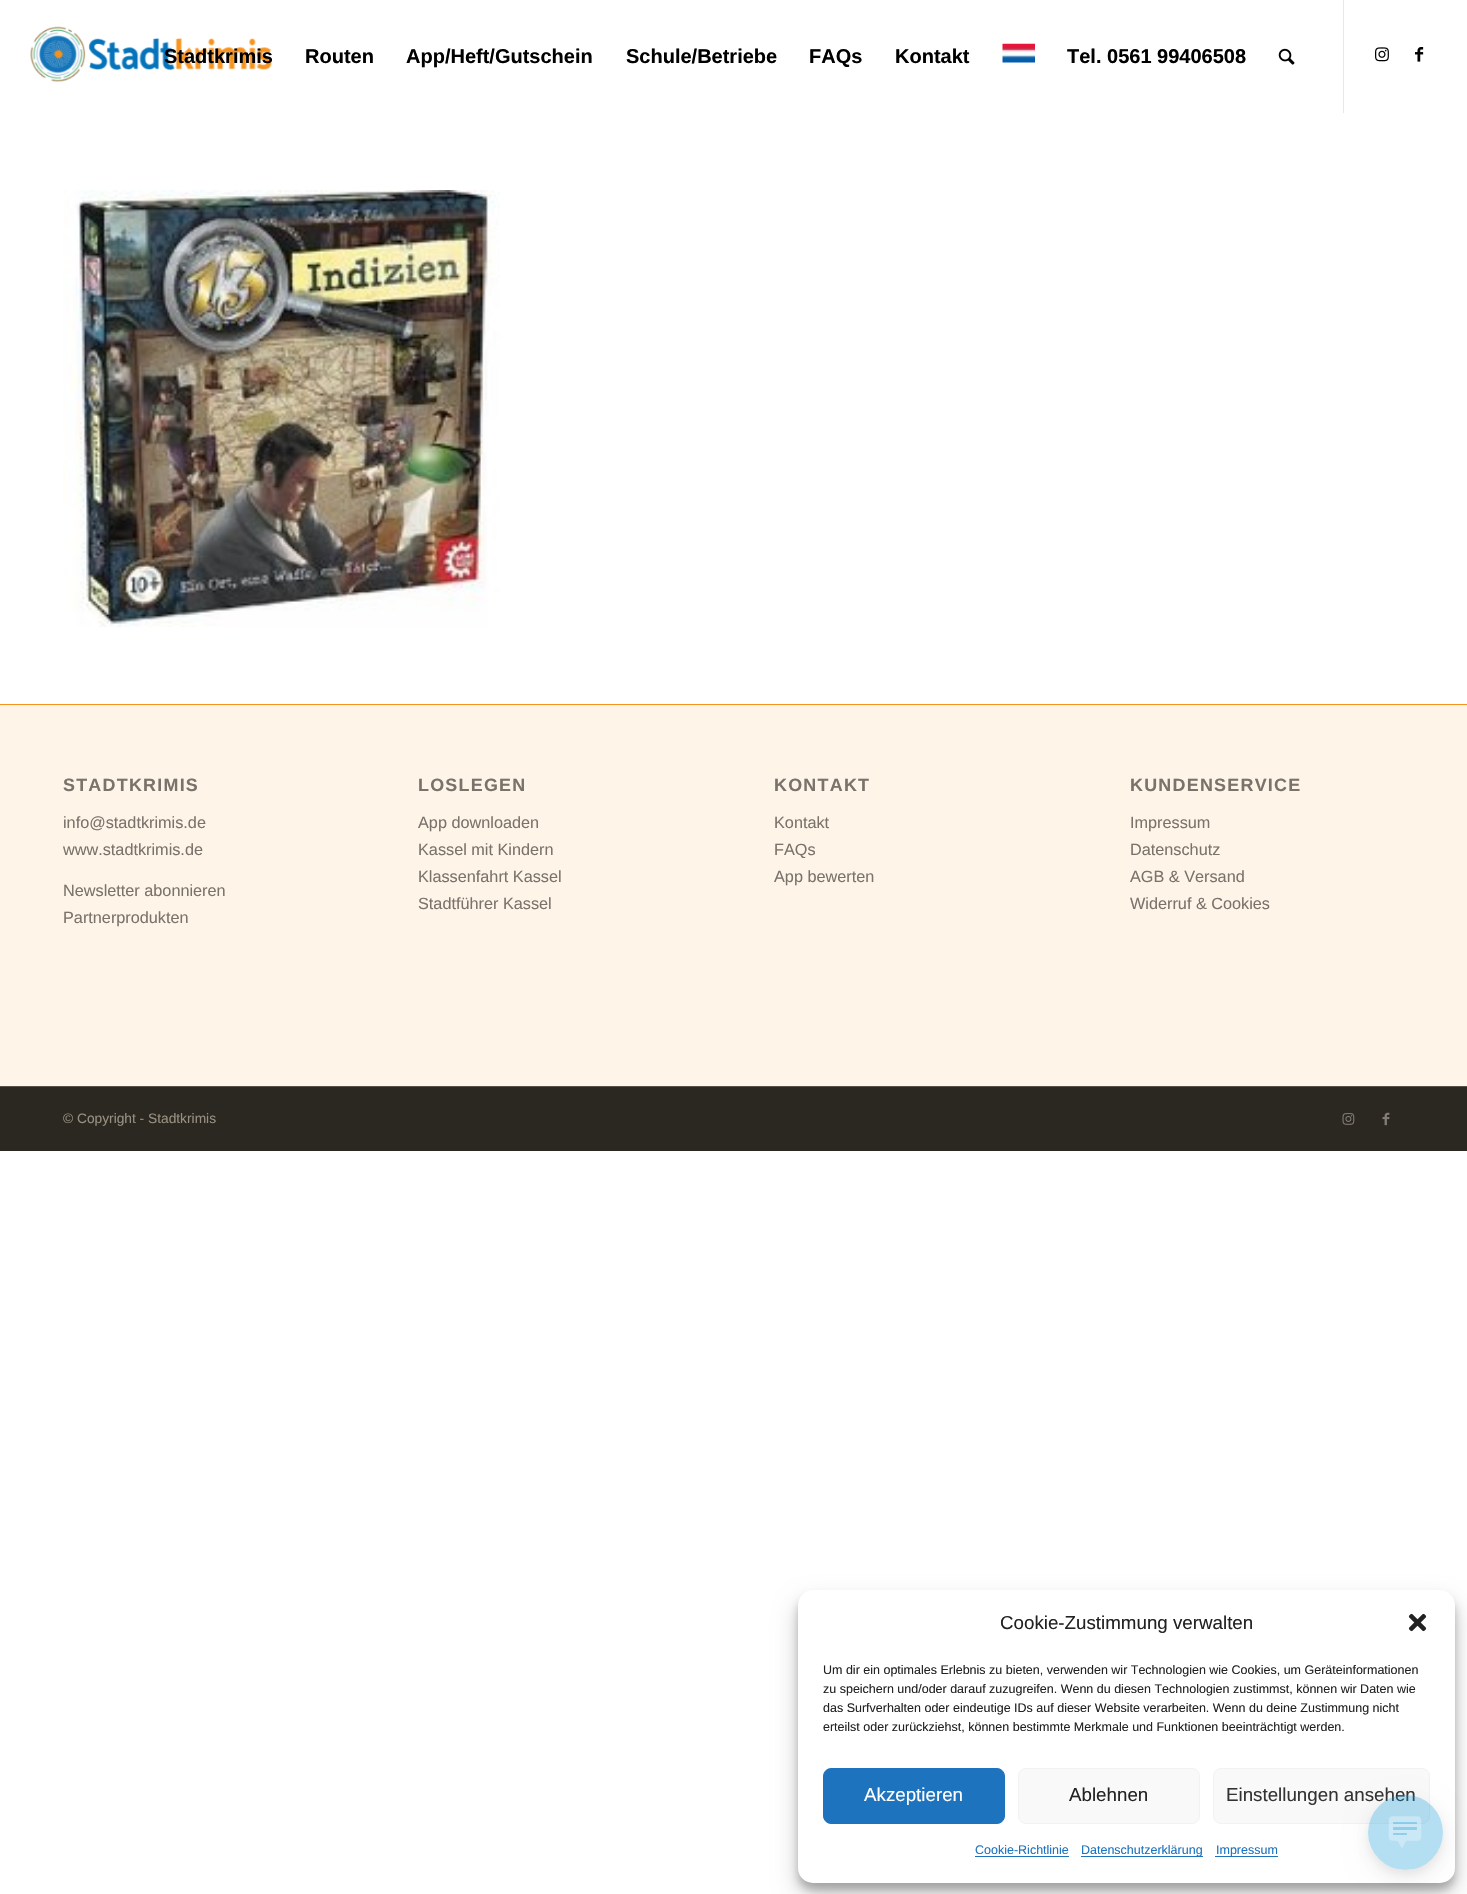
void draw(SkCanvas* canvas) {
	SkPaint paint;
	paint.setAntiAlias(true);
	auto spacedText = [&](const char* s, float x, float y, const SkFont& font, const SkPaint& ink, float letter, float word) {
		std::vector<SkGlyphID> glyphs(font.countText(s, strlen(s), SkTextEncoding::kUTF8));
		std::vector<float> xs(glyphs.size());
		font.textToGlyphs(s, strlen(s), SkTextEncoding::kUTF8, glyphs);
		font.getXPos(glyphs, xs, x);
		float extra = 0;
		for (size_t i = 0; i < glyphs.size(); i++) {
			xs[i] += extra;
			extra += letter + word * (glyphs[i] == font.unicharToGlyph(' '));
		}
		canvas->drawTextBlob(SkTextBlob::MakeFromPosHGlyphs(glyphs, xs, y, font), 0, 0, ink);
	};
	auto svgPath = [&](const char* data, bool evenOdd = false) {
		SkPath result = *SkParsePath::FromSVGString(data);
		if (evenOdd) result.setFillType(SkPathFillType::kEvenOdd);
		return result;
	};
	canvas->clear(0xffffffff);
	canvas->drawImageRect(SkImages::DeferredFromEncodedData(SkData::MakeFromFileName("img1.png")), SkRect::MakeXYWH(30, 26, 243, 56), SkSamplingOptions());
	paint.setColor(0xffebe8e2);
	canvas->drawRect(SkRect::MakeXYWH(1343, 0, 1, 113), paint);
	SkFont f1(fontMgr->matchFamilyStyle("Liberation Sans", SkFontStyle::Bold()), 20);
	f1.setSubpixel(true);
	paint.setColor(0xff000000);
	canvas->drawString("Stadtkrimis", 164, 63, f1, paint);
	canvas->drawString("Routen", 305, 63, f1, paint);
	canvas->drawString("App/Heft/Gutschein", 406, 63, f1, paint);
	canvas->drawString("Schule/Betriebe", 626, 63, f1, paint);
	canvas->drawString("FAQs", 809, 63, f1, paint);
	canvas->drawString("Kontakt", 895, 63, f1, paint);
	canvas->drawImageRect(SkImages::DeferredFromEncodedData(SkData::MakeFromFileName("img2.png")), SkRect::MakeXYWH(1002, 43, 33, 20), SkSamplingOptions());
	canvas->drawString("Tel. 0561 99406508", 1067, 63, f1, paint);
	canvas->drawImageRect(SkImages::DeferredFromEncodedData(SkData::MakeFromFileName("img3.png")), SkRect::MakeXYWH(1278, 48, 17, 17), SkSamplingOptions());
	canvas->drawImageRect(SkImages::DeferredFromEncodedData(SkData::MakeFromFileName("img4.png")), SkRect::MakeXYWH(1375, 47, 14, 15), SkSamplingOptions());
	canvas->drawImageRect(SkImages::DeferredFromEncodedData(SkData::MakeFromFileName("img5.png")), SkRect::MakeXYWH(1415, 47, 9, 15), SkSamplingOptions());
	canvas->drawImageRect(SkImages::DeferredFromEncodedData(SkData::MakeFromFileName("img6.png")), SkRect::MakeXYWH(63, 190, 437, 437), SkSamplingOptions());
	paint.setColor(0xfffff4e8);
	canvas->drawRect(SkRect::MakeXYWH(0, 705, 1467, 381), paint);
	paint.setColor(0xfff7921e);
	canvas->drawRect(SkRect::MakeXYWH(0, 704, 1467, 1), paint);
	SkFont f2(fontMgr->matchFamilyStyle("Liberation Sans", SkFontStyle::Bold()), 17.9);
	f2.setSubpixel(true);
	paint.setColor(0xff7a736b);
	spacedText("STADTKRIMIS", 63, 791, f2, paint, 1.25, 0);
	SkFont f3(fontMgr->matchFamilyStyle("Liberation Sans", SkFontStyle::Normal()), 16.25);
	f3.setSubpixel(true);
	canvas->drawString("info@stadtkrimis.de", 63, 828, f3, paint);
	canvas->drawString("www.stadtkrimis.de", 63, 855, f3, paint);
	canvas->drawString("Newsletter abonnieren", 63, 896, f3, paint);
	canvas->drawString("Partnerprodukten", 63, 923, f3, paint);
	spacedText("LOSLEGEN", 418, 791, f2, paint, 1.25, 0);
	canvas->drawString("App downloaden", 418, 828, f3, paint);
	canvas->drawString("Kassel mit Kindern", 418, 855, f3, paint);
	canvas->drawString("Klassenfahrt Kassel", 418, 882, f3, paint);
	canvas->drawString("Stadtführer Kassel", 418, 909, f3, paint);
	spacedText("KONTAKT", 774, 791, f2, paint, 1.25, 0);
	canvas->drawString("Kontakt", 774, 828, f3, paint);
	canvas->drawString("FAQs", 774, 855, f3, paint);
	canvas->drawString("App bewerten", 774, 882, f3, paint);
	spacedText("KUNDENSERVICE", 1130, 791, f2, paint, 1.25, 0);
	canvas->drawString("Impressum", 1130, 828, f3, paint);
	canvas->drawString("Datenschutz", 1130, 855, f3, paint);
	canvas->drawString("AGB & Versand", 1130, 882, f3, paint);
	canvas->drawString("Widerruf & Cookies", 1130, 909, f3, paint);
	paint.setColor(0xff2b2822);
	canvas->drawRect(SkRect::MakeXYWH(0, 1087, 1467, 64), paint);
	paint.setColor(0xff575149);
	canvas->drawRect(SkRect::MakeXYWH(0, 1086, 1467, 1), paint);
	SkFont f4(fontMgr->matchFamilyStyle("Liberation Sans", SkFontStyle::Normal()), 13.75);
	f4.setSubpixel(true);
	paint.setColor(0xff988f81);
	canvas->drawString("© Copyright - Stadtkrimis", 63, 1123, f4, paint);
	canvas->drawImageRect(SkImages::DeferredFromEncodedData(SkData::MakeFromFileName("img7.png")), SkRect::MakeXYWH(1342, 1113, 13, 12), SkSamplingOptions());
	canvas->drawImageRect(SkImages::DeferredFromEncodedData(SkData::MakeFromFileName("img8.png")), SkRect::MakeXYWH(1382, 1112, 8, 14), SkSamplingOptions());
	paint.setColor(0x3b000000);
	paint.setMaskFilter(SkMaskFilter::MakeBlur(kNormal_SkBlurStyle, 4));
	canvas->drawRoundRect(SkRect::MakeXYWH(798, 1598, 657, 292), 15, 15, paint);
	paint.setMaskFilter(nullptr);
	paint.setColor(0x30000000);
	paint.setMaskFilter(SkMaskFilter::MakeBlur(kNormal_SkBlurStyle, 12.5));
	canvas->drawRoundRect(SkRect::MakeXYWH(798, 1603, 657, 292), 15, 15, paint);
	paint.setMaskFilter(nullptr);
	paint.setColor(0xffffffff);
	canvas->drawRoundRect(SkRect::MakeXYWH(798, 1590, 657, 293), 15, 15, paint);
	SkFont f5(fontMgr->matchFamilyStyle("Liberation Sans", SkFontStyle::Normal()), 18.75);
	f5.setSubpixel(true);
	paint.setColor(0xff222222);
	canvas->drawString("Cookie-Zustimmung verwalten", 1000, 1629, f5, paint);
	canvas->drawImageRect(SkImages::DeferredFromEncodedData(SkData::MakeFromFileName("img9.png")), SkRect::MakeXYWH(1408, 1613, 19, 19), SkSamplingOptions());
	SkFont f6(fontMgr->matchFamilyStyle("Liberation Sans", SkFontStyle::Normal()), 12.5);
	f6.setSubpixel(true);
	canvas->drawString("Um dir ein optimales Erlebnis zu bieten, verwenden wir Technologien wie Cookies, um Geräteinformationen", 823, 1674, f6, paint);
	canvas->drawString("zu speichern und/oder darauf zuzugreifen. Wenn du diesen Technologien zustimmst, können wir Daten wie", 823, 1693, f6, paint);
	canvas->drawString("das Surfverhalten oder eindeutige IDs auf dieser Website verarbeiten. Wenn du deine Zustimmung nicht", 823, 1712, f6, paint);
	canvas->drawString("erteilst oder zurückziehst, können bestimmte Merkmale und Funktionen beeinträchtigt werden.", 823, 1731, f6, paint);
	paint.setColor(0xff1e73be);
	canvas->drawRoundRect(SkRect::MakeXYWH(823.5, 1768.5, 181, 55), 7.5, 7.5, paint);
	paint.setStroke(true);
	paint.setStrokeWidth(1);
	canvas->drawRoundRect(SkRect::MakeXYWH(823.5, 1768.5, 181, 55), 7.5, 7.5, paint);
	paint.setStroke(false);
	paint.setColor(0xffffffff);
	canvas->drawString("Akzeptieren", 864, 1801, f5, paint);
	paint.setColor(0xfff9f9f9);
	canvas->drawRoundRect(SkRect::MakeXYWH(1018.5, 1768.5, 181, 55), 7.5, 7.5, paint);
	paint.setStroke(true);
	paint.setColor(0xfff2f2f2);
	canvas->drawRoundRect(SkRect::MakeXYWH(1018.5, 1768.5, 181, 55), 7.5, 7.5, paint);
	paint.setStroke(false);
	paint.setColor(0xff222222);
	canvas->drawString("Ablehnen", 1069, 1801, f5, paint);
	paint.setColor(0xfff9f9f9);
	canvas->drawRoundRect(SkRect::MakeXYWH(1213.5, 1768.5, 216, 55), 7.5, 7.5, paint);
	paint.setStroke(true);
	paint.setColor(0xfff2f2f2);
	canvas->drawRoundRect(SkRect::MakeXYWH(1213.5, 1768.5, 216, 55), 7.5, 7.5, paint);
	paint.setStroke(false);
	paint.setColor(0xff333333);
	canvas->drawString("Einstellungen ansehen", 1226, 1801, f5, paint);
	paint.setColor(0xff1e73be);
	canvas->drawString("Cookie-Richtlinie", 975, 1854, f6, paint);
	canvas->drawRect(SkRect::MakeXYWH(975, 1856, 94, 1), paint);
	canvas->drawRect(SkRect::MakeXYWH(1081, 1856, 122, 1), paint);
	canvas->drawString("Datenschutzerklärung", 1081, 1854, f6, paint);
	canvas->drawRect(SkRect::MakeXYWH(1215, 1856, 63, 1), paint);
	canvas->drawString("Impressum", 1216, 1854, f6, paint);
	canvas->save();
	canvas->clipPath(svgPath("M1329 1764H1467V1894H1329ZM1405.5 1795C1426 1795 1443 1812 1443 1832.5C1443 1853 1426 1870 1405.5 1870C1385 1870 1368 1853 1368 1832.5C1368 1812 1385 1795 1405.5 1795Z", true), true);
	paint.setColor(0x0f000000);
	paint.setMaskFilter(SkMaskFilter::MakeBlur(kNormal_SkBlurStyle, 12.5));
	canvas->drawRoundRect(SkRect::MakeXYWH(1368, 1803, 75, 75), 37.5, 37.5, paint);
	paint.setMaskFilter(nullptr);
	canvas->restore();
	canvas->save();
	canvas->clipPath(svgPath("M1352 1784H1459V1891H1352ZM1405.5 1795C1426 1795 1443 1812 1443 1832.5C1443 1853 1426 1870 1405.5 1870C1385 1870 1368 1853 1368 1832.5C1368 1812 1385 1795 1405.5 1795Z", true), true);
	paint.setMaskFilter(SkMaskFilter::MakeBlur(kNormal_SkBlurStyle, 5));
	canvas->drawRoundRect(SkRect::MakeXYWH(1368, 1800, 75, 75), 37.5, 37.5, paint);
	paint.setMaskFilter(nullptr);
	canvas->restore();
	paint.setColor(0x4d0596d4);
	canvas->drawCircle(1405.5, 1832.5, 37.5, paint);
	canvas->drawImageRect(SkImages::DeferredFromEncodedData(SkData::MakeFromFileName("img10.png")), SkRect::MakeXYWH(1388, 1816, 34, 32), SkSamplingOptions());
}
